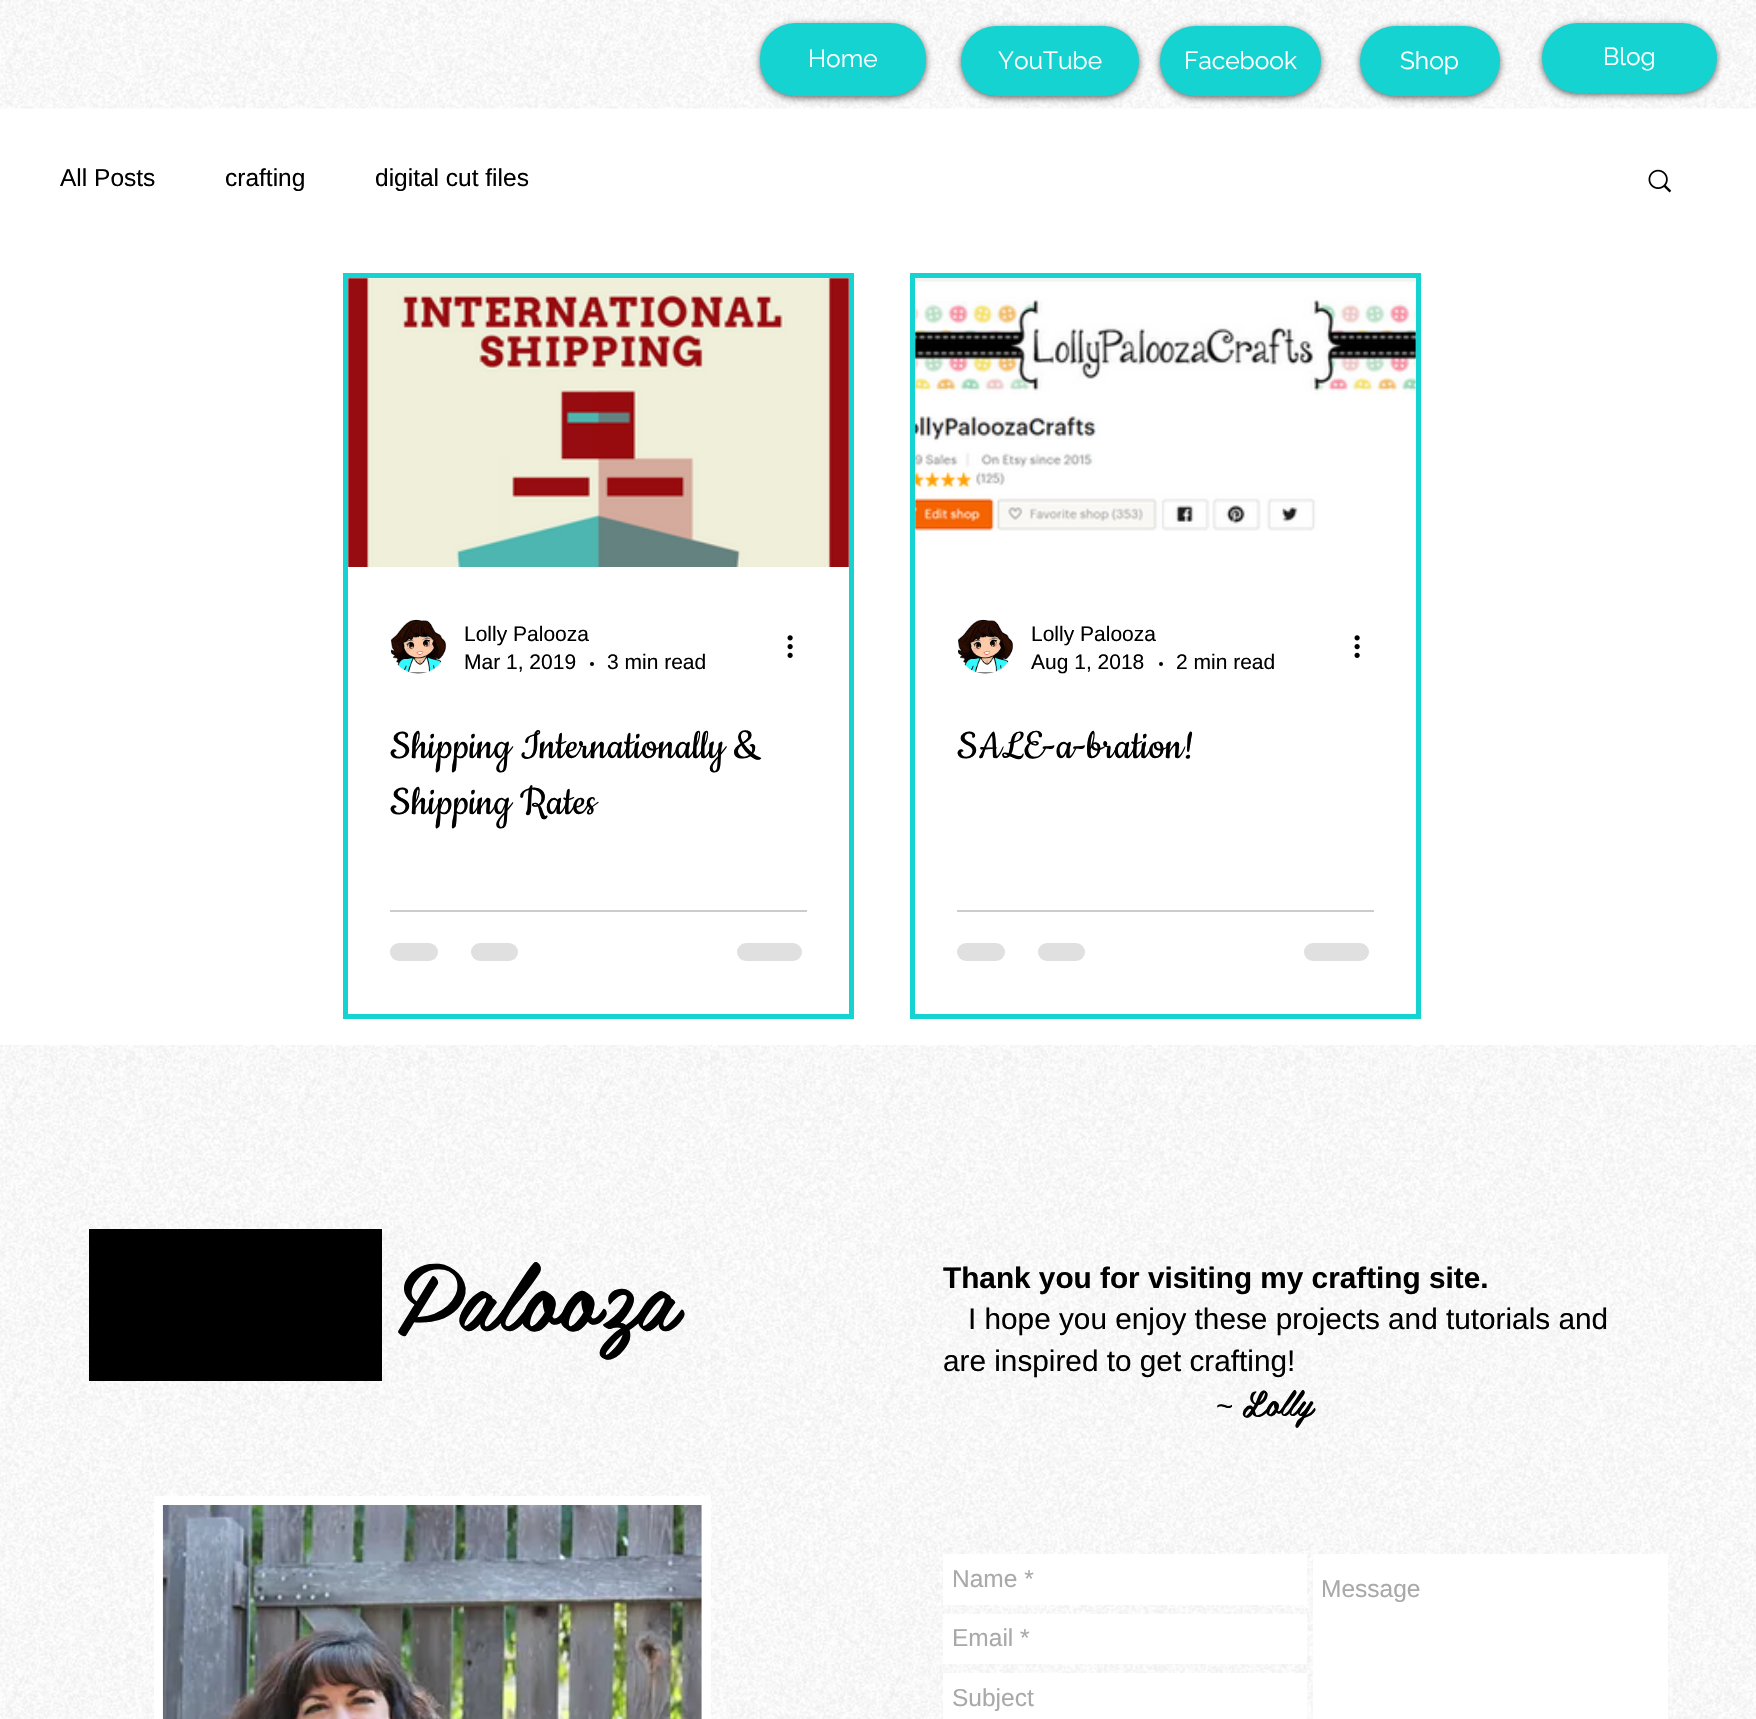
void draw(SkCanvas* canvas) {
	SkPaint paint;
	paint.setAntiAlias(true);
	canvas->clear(0xffffffff);
	canvas->drawImageRect(SkImages::DeferredFromEncodedData(SkData::MakeFromFileName("img1.png")), SkRect::MakeXYWH(0, 0, 1756, 109), SkSamplingOptions());
	paint.setColor(0x99000000);
	paint.setMaskFilter(SkMaskFilter::MakeBlur(kNormal_SkBlurStyle, 3.5));
	canvas->drawRoundRect(SkRect::MakeXYWH(760, 25, 166, 73), 35, 35, paint);
	paint.setMaskFilter(nullptr);
	paint.setColor(0xff15d3d0);
	canvas->drawRoundRect(SkRect::MakeXYWH(760, 23, 166, 73), 35, 35, paint);
	SkFont f1(fontMgr->matchFamilyStyle("Raleway", SkFontStyle::Normal()), 24.5);
	f1.setSubpixel(true);
	paint.setColor(0xffffffff);
	canvas->drawString("Home", 808, 67, f1, paint);
	paint.setColor(0x99000000);
	paint.setMaskFilter(SkMaskFilter::MakeBlur(kNormal_SkBlurStyle, 3.5));
	canvas->drawRoundRect(SkRect::MakeXYWH(961, 28, 178, 70), 35, 35, paint);
	paint.setMaskFilter(nullptr);
	paint.setColor(0xff15d3d0);
	canvas->drawRoundRect(SkRect::MakeXYWH(961, 26, 178, 70), 35, 35, paint);
	paint.setColor(0xffffffff);
	canvas->drawString("YouTube", 998, 69, f1, paint);
	paint.setColor(0x99000000);
	paint.setMaskFilter(SkMaskFilter::MakeBlur(kNormal_SkBlurStyle, 3.5));
	canvas->drawRoundRect(SkRect::MakeXYWH(1160, 28, 161, 70), 35, 35, paint);
	paint.setMaskFilter(nullptr);
	paint.setColor(0xff15d3d0);
	canvas->drawRoundRect(SkRect::MakeXYWH(1160, 26, 161, 70), 35, 35, paint);
	paint.setColor(0xffffffff);
	canvas->drawString("Facebook", 1184, 69, f1, paint);
	paint.setColor(0x99000000);
	paint.setMaskFilter(SkMaskFilter::MakeBlur(kNormal_SkBlurStyle, 3.5));
	canvas->drawRoundRect(SkRect::MakeXYWH(1360, 28, 140, 70), 35, 35, paint);
	paint.setMaskFilter(nullptr);
	paint.setColor(0xff15d3d0);
	canvas->drawRoundRect(SkRect::MakeXYWH(1360, 26, 140, 70), 35, 35, paint);
	paint.setColor(0xffffffff);
	canvas->drawString("Shop", 1400, 69, f1, paint);
	paint.setColor(0x99000000);
	paint.setMaskFilter(SkMaskFilter::MakeBlur(kNormal_SkBlurStyle, 3.5));
	canvas->drawRoundRect(SkRect::MakeXYWH(1542, 25, 175, 70), 35, 35, paint);
	paint.setMaskFilter(nullptr);
	paint.setColor(0xff15d3d0);
	canvas->drawRoundRect(SkRect::MakeXYWH(1542, 23, 175, 70), 35, 35, paint);
	paint.setColor(0xffffffff);
	canvas->drawString("Blog", 1603, 65, f1, paint);
	SkFont f2(fontMgr->matchFamilyStyle("Liberation Sans", SkFontStyle::Normal()), 24.5);
	f2.setSubpixel(true);
	paint.setColor(0xff000000);
	canvas->drawString("All Posts", 60, 186, f2, paint);
	canvas->drawString("crafting", 225, 186, f2, paint);
	canvas->drawString("digital cut files", 375, 186, f2, paint);
	canvas->drawImageRect(SkImages::DeferredFromEncodedData(SkData::MakeFromFileName("img2.png")), SkRect::MakeXYWH(1648, 169, 24, 24), SkSamplingOptions());
	paint.setStroke(true);
	paint.setStrokeWidth(5);
	paint.setColor(0xff15d3d0);
	canvas->drawRect(SkRect::MakeXYWH(345.5, 275.5, 506, 741), paint);
	canvas->drawImageRect(SkImages::DeferredFromEncodedData(SkData::MakeFromFileName("img3.png")), SkRect::MakeXYWH(348, 278, 501, 289), SkSamplingOptions());
	canvas->drawImageRect(SkImages::DeferredFromEncodedData(SkData::MakeFromFileName("img4.png")), SkRect::MakeXYWH(391, 619, 56, 55), SkSamplingOptions());
	SkFont f3(fontMgr->matchFamilyStyle("Liberation Sans", SkFontStyle::Normal()), 21);
	f3.setSubpixel(true);
	paint.setStroke(false);
	paint.setColor(0xff000000);
	canvas->drawString("Lolly Palooza", 464, 641, f3, paint);
	canvas->drawString("Mar 1, 2019", 464, 669, f3, paint);
	canvas->drawCircle(592, 664, 2, paint);
	canvas->drawString("3 min read", 607, 669, f3, paint);
	canvas->drawImageRect(SkImages::DeferredFromEncodedData(SkData::MakeFromFileName("img5.png")), SkRect::MakeXYWH(787, 635, 6, 23), SkSamplingOptions());
	SkFont f4(fontMgr->matchFamilyStyle("Cookie", SkFontStyle::Normal()), 45.5);
	f4.setSubpixel(true);
	canvas->drawString("Shipping Internationally &", 390, 758, f4, paint);
	canvas->drawString("Shipping Rates", 390, 814, f4, paint);
	paint.setColor(0xffcccccc);
	canvas->drawRect(SkRect::MakeXYWH(390, 910, 417, 2), paint);
	paint.setColor(0xffe0e0e0);
	canvas->drawRoundRect(SkRect::MakeXYWH(390, 943, 48, 18), 9, 9, paint);
	canvas->drawRoundRect(SkRect::MakeXYWH(471, 943, 47, 18), 9, 9, paint);
	canvas->drawRoundRect(SkRect::MakeXYWH(737, 943, 65, 18), 9, 9, paint);
	paint.setStroke(true);
	paint.setColor(0xff15d3d0);
	canvas->drawRect(SkRect::MakeXYWH(912.5, 275.5, 506, 741), paint);
	canvas->drawImageRect(SkImages::DeferredFromEncodedData(SkData::MakeFromFileName("img6.png")), SkRect::MakeXYWH(915, 278, 501, 253), SkSamplingOptions());
	canvas->drawImageRect(SkImages::DeferredFromEncodedData(SkData::MakeFromFileName("img7.png")), SkRect::MakeXYWH(958, 619, 56, 55), SkSamplingOptions());
	paint.setStroke(false);
	paint.setColor(0xff000000);
	canvas->drawString("Lolly Palooza", 1031, 641, f3, paint);
	canvas->drawString("Aug 1, 2018", 1031, 669, f3, paint);
	canvas->drawCircle(1161, 664, 2, paint);
	canvas->drawString("2 min read", 1176, 669, f3, paint);
	canvas->drawImageRect(SkImages::DeferredFromEncodedData(SkData::MakeFromFileName("img5.png")), SkRect::MakeXYWH(1354, 635, 6, 23), SkSamplingOptions());
	canvas->drawString("SALE-a-bration!", 957, 758, f4, paint);
	paint.setColor(0xffcccccc);
	canvas->drawRect(SkRect::MakeXYWH(957, 910, 417, 2), paint);
	paint.setColor(0xffe0e0e0);
	canvas->drawRoundRect(SkRect::MakeXYWH(957, 943, 48, 18), 9, 9, paint);
	canvas->drawRoundRect(SkRect::MakeXYWH(1038, 943, 47, 18), 9, 9, paint);
	canvas->drawRoundRect(SkRect::MakeXYWH(1304, 943, 65, 18), 9, 9, paint);
	canvas->drawImageRect(SkImages::DeferredFromEncodedData(SkData::MakeFromFileName("img8.png")), SkRect::MakeXYWH(0, 1045, 1756, 674), SkSamplingOptions());
	paint.setColor(0xff000000);
	canvas->drawRect(SkRect::MakeXYWH(89, 1229, 293, 152), paint);
	SkFont f5(fontMgr->matchFamilyStyle("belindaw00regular", SkFontStyle::Normal()), 93);
	f5.setSubpixel(true);
	canvas->drawString("Palooza", 396, 1331, f5, paint);
	SkFont f6(fontMgr->matchFamilyStyle("Liberation Sans", SkFontStyle::Bold()), 29.75);
	f6.setSubpixel(true);
	canvas->drawString("Thank you for visiting my crafting site.", 943, 1288, f6, paint);
	SkFont f7(fontMgr->matchFamilyStyle("Liberation Sans", SkFontStyle::Normal()), 29.75);
	f7.setSubpixel(true);
	canvas->drawString("I hope you enjoy these projects and tutorials and", 968, 1329, f7, paint);
	canvas->drawString("are inspired to get crafting!", 943, 1371, f7, paint);
	canvas->drawString("~", 1216, 1416, f7, paint);
	SkFont f8(fontMgr->matchFamilyStyle("belindaw00regular", SkFontStyle::Normal()), 35);
	f8.setSubpixel(true);
	canvas->drawString("Lolly", 1242, 1416, f8, paint);
	paint.setColor(0xffffffff);
	canvas->drawRect(SkRect::MakeXYWH(154, 1496, 557, 223), paint);
	canvas->drawImageRect(SkImages::DeferredFromEncodedData(SkData::MakeFromFileName("img9.png")), SkRect::MakeXYWH(162, 1505, 540, 214), SkSamplingOptions());
	canvas->drawRect(SkRect::MakeXYWH(943, 1554, 364, 51), paint);
	paint.setColor(0xffa9a9a9);
	canvas->drawString("Name *", 952, 1587, f2, paint);
	paint.setColor(0xffffffff);
	canvas->drawRect(SkRect::MakeXYWH(1313, 1554, 355, 165), paint);
	paint.setColor(0xffa9a9a9);
	canvas->drawString("Message", 1321, 1597, f2, paint);
	paint.setColor(0xffffffff);
	canvas->drawRect(SkRect::MakeXYWH(943, 1614, 364, 50), paint);
	paint.setColor(0xffa9a9a9);
	canvas->drawString("Email *", 952, 1646, f2, paint);
	paint.setColor(0xffffffff);
	canvas->drawRect(SkRect::MakeXYWH(943, 1673, 364, 46), paint);
	paint.setColor(0xffa9a9a9);
	canvas->drawString("Subject", 952, 1706, f2, paint);
}
